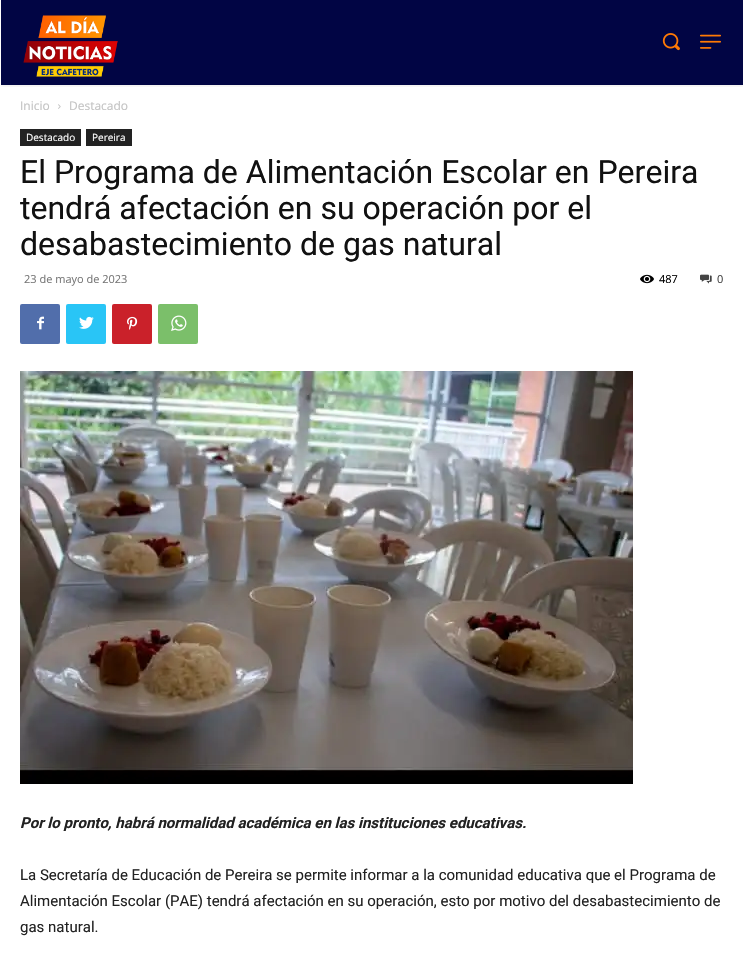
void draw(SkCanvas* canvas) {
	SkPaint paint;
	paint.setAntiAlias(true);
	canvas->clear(0xffffffff);
	paint.setColor(0xff010544);
	canvas->drawRect(SkRect::MakeXYWH(1, 0, 742, 85), paint);
	canvas->drawImageRect(SkImages::DeferredFromEncodedData(SkData::MakeFromFileName("img1.png")), SkRect::MakeXYWH(23, 15, 95, 62), SkSamplingOptions());
	canvas->drawImageRect(SkImages::DeferredFromEncodedData(SkData::MakeFromFileName("img2.png")), SkRect::MakeXYWH(662, 33, 18, 18), SkSamplingOptions());
	canvas->drawImageRect(SkImages::DeferredFromEncodedData(SkData::MakeFromFileName("img3.png")), SkRect::MakeXYWH(700, 34, 21, 15), SkSamplingOptions());
	canvas->save();
	canvas->clipRect(SkRect::MakeXYWH(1, 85, 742, 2));
	paint.setColor(0x14000000);
	paint.setMaskFilter(SkMaskFilter::MakeBlur(kNormal_SkBlurStyle, 2));
	canvas->drawRect(SkRect::MakeXYWH(1, 1, 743, 85), paint);
	paint.setMaskFilter(nullptr);
	canvas->restore();
	SkFont f1(fontMgr->matchFamilyStyle("Open Sans", SkFontStyle::Normal()), 12);
	f1.setSubpixel(true);
	paint.setColor(0xffc3c3c3);
	canvas->drawString("Inicio", 20, 110, f1, paint);
	canvas->drawImageRect(SkImages::DeferredFromEncodedData(SkData::MakeFromFileName("img4.png")), SkRect::MakeXYWH(58, 104, 3, 5), SkSamplingOptions());
	canvas->drawString("Destacado", 69, 110, f1, paint);
	paint.setColor(0xff222222);
	canvas->drawRect(SkRect::MakeXYWH(20, 129, 61, 17), paint);
	SkFont f2(fontMgr->matchFamilyStyle("Open Sans", SkFontStyle::Normal()), 10);
	f2.setSubpixel(true);
	paint.setColor(0xffffffff);
	canvas->drawString("Destacado", 26, 141, f2, paint);
	paint.setColor(0xff222222);
	canvas->drawRect(SkRect::MakeXYWH(86, 129, 46, 17), paint);
	paint.setColor(0xffffffff);
	canvas->drawString("Pereira", 92, 141, f2, paint);
	SkFont f3(fontMgr->matchFamilyStyle("Roboto", SkFontStyle::Normal()), 32);
	f3.setSubpixel(true);
	paint.setColor(0xff111111);
	canvas->drawString("El Programa de Alimentación Escolar en Pereira", 20, 183, f3, paint);
	canvas->drawString("tendrá afectación en su operación por el", 20, 219, f3, paint);
	canvas->drawString("desabastecimiento de gas natural", 20, 255, f3, paint);
	SkFont f4(fontMgr->matchFamilyStyle("Open Sans", SkFontStyle::Normal()), 11);
	f4.setSubpixel(true);
	paint.setColor(0xff767676);
	canvas->drawString("23 de mayo de 2023", 24, 283, f4, paint);
	canvas->drawImageRect(SkImages::DeferredFromEncodedData(SkData::MakeFromFileName("img5.png")), SkRect::MakeXYWH(640, 274, 14, 10), SkSamplingOptions());
	paint.setColor(0xff000000);
	canvas->drawString("487", 659, 283, f4, paint);
	canvas->drawImageRect(SkImages::DeferredFromEncodedData(SkData::MakeFromFileName("img6.png")), SkRect::MakeXYWH(700, 274, 12, 10), SkSamplingOptions());
	paint.setColor(0xff444444);
	canvas->drawString("0", 717, 283, f4, paint);
	paint.setColor(0xff516eab);
	canvas->drawRoundRect(SkRect::MakeXYWH(20, 304, 40, 40), 2, 2, paint);
	canvas->drawImageRect(SkImages::DeferredFromEncodedData(SkData::MakeFromFileName("img7.png")), SkRect::MakeXYWH(37, 316, 7, 14), SkSamplingOptions());
	paint.setColor(0xff29c5f6);
	canvas->drawRoundRect(SkRect::MakeXYWH(66, 304, 40, 40), 2, 2, paint);
	canvas->drawImageRect(SkImages::DeferredFromEncodedData(SkData::MakeFromFileName("img8.png")), SkRect::MakeXYWH(79, 316, 15, 13), SkSamplingOptions());
	paint.setColor(0xffca212a);
	canvas->drawRoundRect(SkRect::MakeXYWH(112, 304, 40, 40), 2, 2, paint);
	canvas->drawImageRect(SkImages::DeferredFromEncodedData(SkData::MakeFromFileName("img9.png")), SkRect::MakeXYWH(127, 316, 11, 14), SkSamplingOptions());
	paint.setColor(0xff7bbf6a);
	canvas->drawRoundRect(SkRect::MakeXYWH(158, 304, 40, 40), 2, 2, paint);
	canvas->drawImageRect(SkImages::DeferredFromEncodedData(SkData::MakeFromFileName("img10.png")), SkRect::MakeXYWH(171, 315, 16, 16), SkSamplingOptions());
	canvas->drawImageRect(SkImages::DeferredFromEncodedData(SkData::MakeFromFileName("img11.png")), SkRect::MakeXYWH(20, 371, 613, 413), SkSamplingOptions());
	SkFont f5(fontMgr->matchFamilyStyle("Roboto", SkFontStyle::BoldItalic()), 15);
	f5.setSubpixel(true);
	paint.setColor(0xff222222);
	canvas->drawString("Por lo pronto, habrá normalidad académica en las instituciones educativas.", 20, 828, f5, paint);
	SkFont f6(fontMgr->matchFamilyStyle("Roboto", SkFontStyle::Normal()), 15);
	f6.setSubpixel(true);
	canvas->drawString("La Secretaría de Educación de Pereira se permite informar a la comunidad educativa que el Programa de", 20, 880, f6, paint);
	canvas->drawString("Alimentación Escolar (PAE) tendrá afectación en su operación, esto por motivo del desabastecimiento de", 20, 906, f6, paint);
	canvas->drawString("gas natural.", 20, 932, f6, paint);
}
